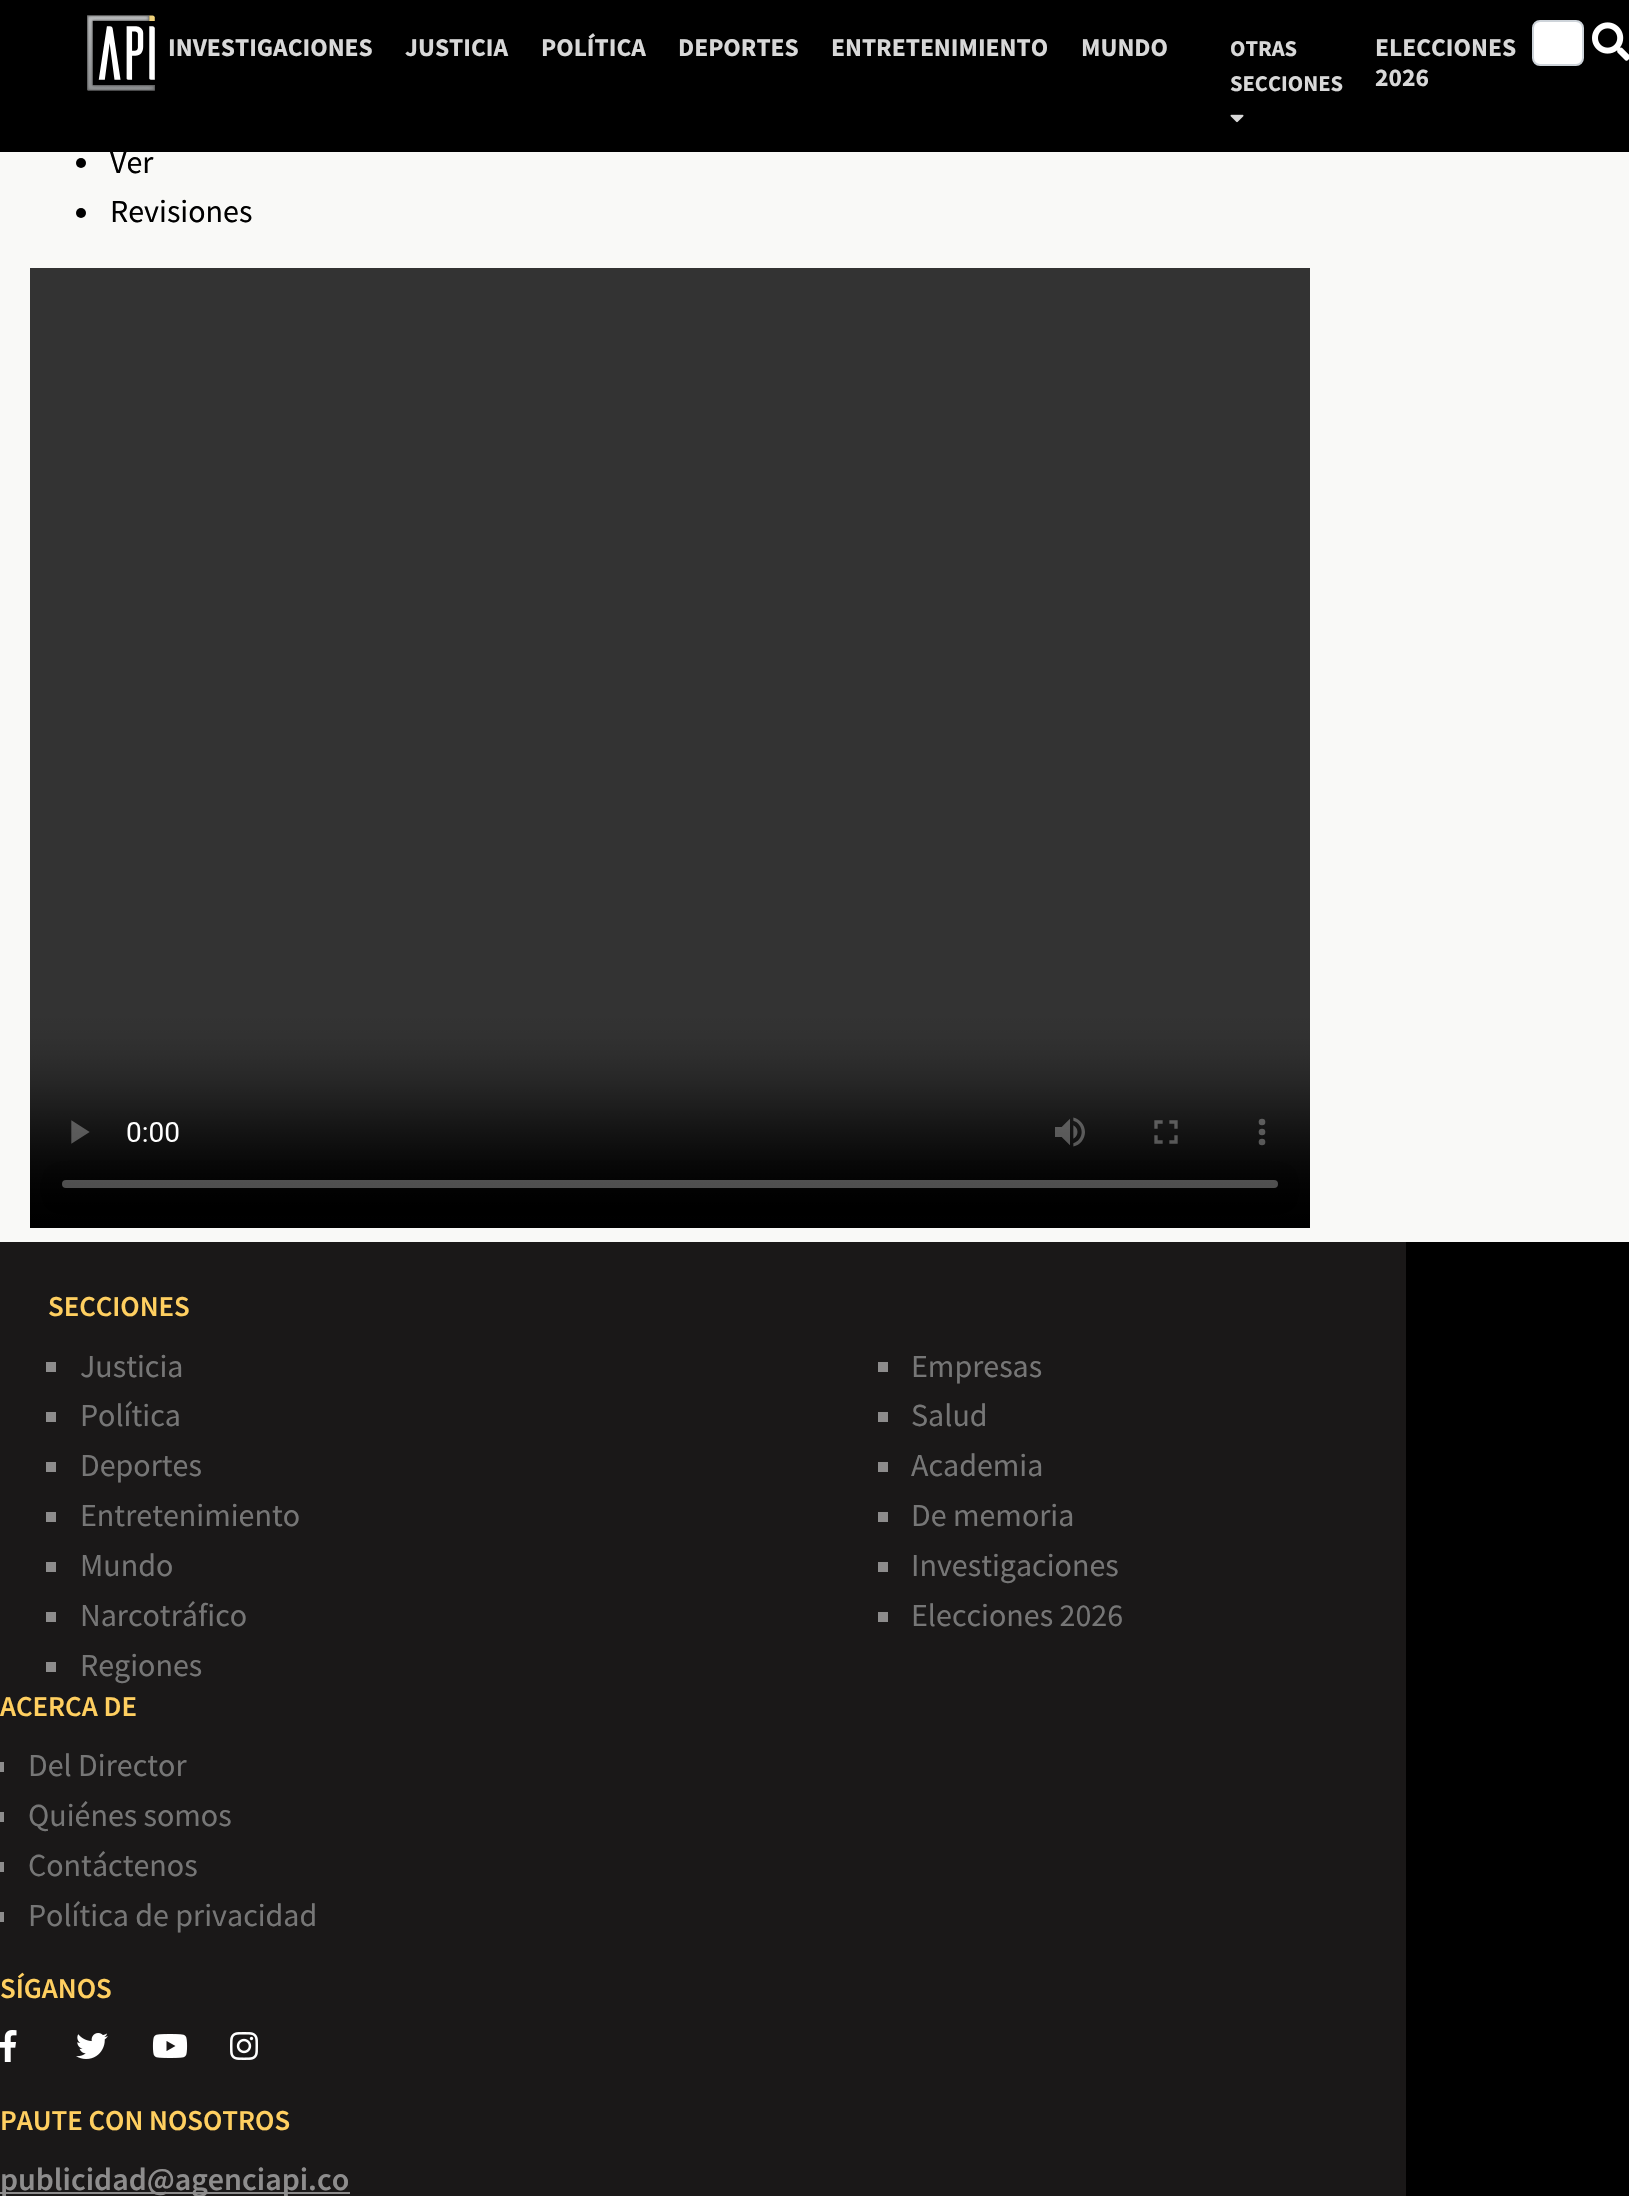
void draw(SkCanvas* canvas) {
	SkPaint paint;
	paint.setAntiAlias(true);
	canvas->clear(0xfff9f9f7);
	paint.setColor(0xff000000);
	canvas->drawRect(SkRect::MakeXYWH(0, 0, 1629, 152), paint);
	canvas->drawImageRect(SkImages::DeferredFromEncodedData(SkData::MakeFromFileName("img1.png")), SkRect::MakeXYWH(87, 15, 68, 76), SkSamplingOptions());
	SkFont f1(fontMgr->matchFamilyStyle("Source Sans Pro", SkFontStyle::Bold()), 25.5);
	f1.setSubpixel(true);
	paint.setColor(0xffd8d8d8);
	canvas->drawString("INVESTIGACIONES", 168, 56, f1, paint);
	canvas->drawString("JUSTICIA", 405, 56, f1, paint);
	canvas->drawString("POLÍTICA", 541, 56, f1, paint);
	canvas->drawString("DEPORTES", 678, 56, f1, paint);
	canvas->drawString("ENTRETENIMIENTO", 831, 56, f1, paint);
	canvas->drawString("MUNDO", 1081, 56, f1, paint);
	SkFont f2(fontMgr->matchFamilyStyle("Source Sans Pro", SkFontStyle::Bold()), 22.5);
	f2.setSubpixel(true);
	canvas->drawString("OTRAS", 1230, 56, f2, paint);
	canvas->drawString("SECCIONES", 1230, 91, f2, paint);
	canvas->drawImageRect(SkImages::DeferredFromEncodedData(SkData::MakeFromFileName("img2.png")), SkRect::MakeXYWH(1230, 114, 14, 9), SkSamplingOptions());
	canvas->drawString("ELECCIONES", 1375, 56, f1, paint);
	canvas->drawString("2026", 1375, 86, f1, paint);
	paint.setColor(0xffffffff);
	canvas->drawRoundRect(SkRect::MakeXYWH(1533, 21, 50, 44), 7, 7, paint);
	paint.setStroke(true);
	paint.setStrokeWidth(2);
	paint.setColor(0xffced4da);
	canvas->drawRoundRect(SkRect::MakeXYWH(1533, 21, 50, 44), 7, 7, paint);
	canvas->drawImageRect(SkImages::DeferredFromEncodedData(SkData::MakeFromFileName("img3.png")), SkRect::MakeXYWH(1592, 22, 37, 39), SkSamplingOptions());
	paint.setStroke(false);
	paint.setColor(0xff1a1818);
	canvas->drawRect(SkRect::MakeXYWH(0, 1242, 1406, 954), paint);
	paint.setColor(0xff000000);
	canvas->drawRect(SkRect::MakeXYWH(1406, 1242, 223, 954), paint);
	SkFont f3(fontMgr->matchFamilyStyle("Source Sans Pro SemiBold", SkFontStyle(600, SkFontStyle::kNormal_Width, SkFontStyle::kUpright_Slant)), 28.75);
	f3.setSubpixel(true);
	paint.setColor(0xffffcf60);
	canvas->drawString("SECCIONES", 48, 1316, f3, paint);
	paint.setColor(0xff8d8c8c);
	canvas->drawRect(SkRect::MakeXYWH(46, 1362, 10, 10), paint);
	SkFont f4(fontMgr->matchFamilyStyle("Source Sans Pro", SkFontStyle::Normal()), 32);
	f4.setSubpixel(true);
	paint.setColor(0xff767676);
	canvas->drawString("Justicia", 80, 1377, f4, paint);
	paint.setColor(0xff8d8c8c);
	canvas->drawRect(SkRect::MakeXYWH(878, 1362, 10, 10), paint);
	paint.setColor(0xff767676);
	canvas->drawString("Empresas", 911, 1377, f4, paint);
	paint.setColor(0xff8d8c8c);
	canvas->drawRect(SkRect::MakeXYWH(46, 1412, 10, 10), paint);
	paint.setColor(0xff767676);
	canvas->drawString("Política", 80, 1426, f4, paint);
	paint.setColor(0xff8d8c8c);
	canvas->drawRect(SkRect::MakeXYWH(878, 1412, 10, 10), paint);
	paint.setColor(0xff767676);
	canvas->drawString("Salud", 911, 1426, f4, paint);
	paint.setColor(0xff8d8c8c);
	canvas->drawRect(SkRect::MakeXYWH(46, 1462, 10, 10), paint);
	paint.setColor(0xff767676);
	canvas->drawString("Deportes", 80, 1476, f4, paint);
	paint.setColor(0xff8d8c8c);
	canvas->drawRect(SkRect::MakeXYWH(878, 1462, 10, 10), paint);
	paint.setColor(0xff767676);
	canvas->drawString("Academia", 911, 1476, f4, paint);
	paint.setColor(0xff8d8c8c);
	canvas->drawRect(SkRect::MakeXYWH(46, 1512, 10, 10), paint);
	paint.setColor(0xff767676);
	canvas->drawString("Entretenimiento", 80, 1526, f4, paint);
	paint.setColor(0xff8d8c8c);
	canvas->drawRect(SkRect::MakeXYWH(878, 1512, 10, 10), paint);
	paint.setColor(0xff767676);
	canvas->drawString("De memoria", 911, 1526, f4, paint);
	paint.setColor(0xff8d8c8c);
	canvas->drawRect(SkRect::MakeXYWH(46, 1562, 10, 10), paint);
	paint.setColor(0xff767676);
	canvas->drawString("Mundo", 80, 1576, f4, paint);
	paint.setColor(0xff8d8c8c);
	canvas->drawRect(SkRect::MakeXYWH(878, 1562, 10, 10), paint);
	paint.setColor(0xff767676);
	canvas->drawString("Investigaciones", 911, 1576, f4, paint);
	paint.setColor(0xff8d8c8c);
	canvas->drawRect(SkRect::MakeXYWH(46, 1612, 10, 10), paint);
	paint.setColor(0xff767676);
	canvas->drawString("Narcotráfico", 80, 1626, f4, paint);
	paint.setColor(0xff8d8c8c);
	canvas->drawRect(SkRect::MakeXYWH(878, 1612, 10, 10), paint);
	paint.setColor(0xff767676);
	canvas->drawString("Elecciones 2026", 911, 1626, f4, paint);
	paint.setColor(0xff8d8c8c);
	canvas->drawRect(SkRect::MakeXYWH(46, 1662, 10, 10), paint);
	paint.setColor(0xff767676);
	canvas->drawString("Regiones", 80, 1676, f4, paint);
	paint.setColor(0xffffcf60);
	canvas->drawString("ACERCA DE", 0, 1716, f3, paint);
	paint.setColor(0xff8d8c8c);
	canvas->drawRect(SkRect::MakeXYWH(0, 1762, 4, 10), paint);
	paint.setColor(0xff767676);
	canvas->drawString("Del Director", 28, 1776, f4, paint);
	paint.setColor(0xff8d8c8c);
	canvas->drawRect(SkRect::MakeXYWH(0, 1812, 4, 10), paint);
	paint.setColor(0xff767676);
	canvas->drawString("Quiénes somos", 28, 1826, f4, paint);
	paint.setColor(0xff8d8c8c);
	canvas->drawRect(SkRect::MakeXYWH(0, 1862, 4, 10), paint);
	paint.setColor(0xff767676);
	canvas->drawString("Contáctenos", 28, 1876, f4, paint);
	paint.setColor(0xff8d8c8c);
	canvas->drawRect(SkRect::MakeXYWH(0, 1912, 4, 10), paint);
	paint.setColor(0xff767676);
	canvas->drawString("Política de privacidad", 28, 1926, f4, paint);
	paint.setColor(0xffffcf60);
	canvas->drawString("SÍGANOS", 0, 1998, f3, paint);
	canvas->drawImageRect(SkImages::DeferredFromEncodedData(SkData::MakeFromFileName("img4.png")), SkRect::MakeXYWH(0, 2030, 17, 32), SkSamplingOptions());
	canvas->drawImageRect(SkImages::DeferredFromEncodedData(SkData::MakeFromFileName("img5.png")), SkRect::MakeXYWH(76, 2033, 32, 26), SkSamplingOptions());
	canvas->drawImageRect(SkImages::DeferredFromEncodedData(SkData::MakeFromFileName("img6.png")), SkRect::MakeXYWH(152, 2034, 36, 24), SkSamplingOptions());
	canvas->drawImageRect(SkImages::DeferredFromEncodedData(SkData::MakeFromFileName("img7.png")), SkRect::MakeXYWH(230, 2032, 28, 28), SkSamplingOptions());
	canvas->drawString("PAUTE CON NOSOTROS", 0, 2130, f3, paint);
	paint.setColor(0xff8d8c8c);
	canvas->drawRect(SkRect::MakeXYWH(0, 2192, 350, 2), paint);
	SkFont f5(fontMgr->matchFamilyStyle("Source Sans Pro SemiBold", SkFontStyle(600, SkFontStyle::kNormal_Width, SkFontStyle::kUpright_Slant)), 32);
	f5.setSubpixel(true);
	paint.setColor(0xff8e8d8d);
	canvas->drawString("publicidad@agenciapi.co", 0, 2190, f5, paint);
	paint.setColor(0xff000000);
	canvas->drawCircle(81, 163, 5, paint);
	canvas->drawString("Ver", 110, 173, f4, paint);
	canvas->drawCircle(81, 213, 5, paint);
	canvas->drawString("Revisiones", 110, 222, f4, paint);
	canvas->drawImageRect(SkImages::DeferredFromEncodedData(SkData::MakeFromFileName("img8.png")), SkRect::MakeXYWH(30, 268, 1280, 960), SkSamplingOptions());
}
